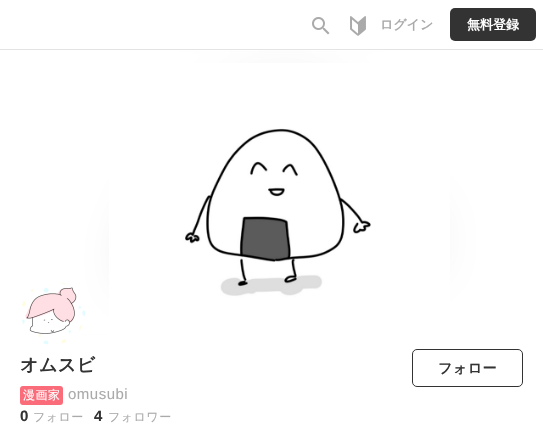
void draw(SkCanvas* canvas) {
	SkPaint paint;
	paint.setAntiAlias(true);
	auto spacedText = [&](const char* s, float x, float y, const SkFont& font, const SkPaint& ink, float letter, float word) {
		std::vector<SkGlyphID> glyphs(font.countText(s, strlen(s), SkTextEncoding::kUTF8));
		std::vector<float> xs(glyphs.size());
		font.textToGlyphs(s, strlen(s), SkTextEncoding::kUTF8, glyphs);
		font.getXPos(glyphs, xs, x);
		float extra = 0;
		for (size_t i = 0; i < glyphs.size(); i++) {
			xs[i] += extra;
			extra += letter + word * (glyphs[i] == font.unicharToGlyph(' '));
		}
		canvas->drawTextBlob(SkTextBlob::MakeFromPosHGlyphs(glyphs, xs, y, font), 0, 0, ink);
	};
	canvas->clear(0xffffffff);
	paint.setColor(0xffe4e4e4);
	canvas->drawRect(SkRect::MakeXYWH(0, 49, 543, 1), paint);
	canvas->drawImageRect(SkImages::DeferredFromEncodedData(SkData::MakeFromFileName("img1.png")), SkRect::MakeXYWH(312, 17, 18, 18), SkSamplingOptions());
	canvas->drawImageRect(SkImages::DeferredFromEncodedData(SkData::MakeFromFileName("img2.png")), SkRect::MakeXYWH(350, 16, 16, 20), SkSamplingOptions());
	SkFont f1(fontMgr->matchFamilyStyle("WenQuanYi Zen Hei", SkFontStyle::Bold()), 13);
	f1.setSubpixel(true);
	paint.setColor(0xffaaaaaa);
	canvas->drawString("ログイン", 380, 29, f1, paint);
	paint.setColor(0xff333333);
	canvas->drawRoundRect(SkRect::MakeXYWH(450, 8, 86, 33), 5, 5, paint);
	paint.setColor(0xffffffff);
	canvas->drawString("無料登録", 467, 29, f1, paint);
	canvas->drawImageRect(SkImages::DeferredFromEncodedData(SkData::MakeFromFileName("img3.png")), SkRect::MakeXYWH(0, 50, 543, 285), SkSamplingOptions());
	canvas->drawImageRect(SkImages::DeferredFromEncodedData(SkData::MakeFromFileName("img4.png")), SkRect::MakeXYWH(109, 63, 341, 272), SkSamplingOptions());
	canvas->drawImageRect(SkImages::DeferredFromEncodedData(SkData::MakeFromFileName("img5.png")), SkRect::MakeXYWH(22, 282, 63, 63), SkSamplingOptions());
	SkFont f2(fontMgr->matchFamilyStyle("WenQuanYi Zen Hei", SkFontStyle::Bold()), 18);
	f2.setSubpixel(true);
	paint.setColor(0xff333333);
	spacedText("オムスビ", 20, 371, f2, paint, 0.5, 0);
	paint.setColor(0xfffa6c7a);
	canvas->drawRoundRect(SkRect::MakeXYWH(20, 386, 43, 19), 3, 3, paint);
	SkFont f3(fontMgr->matchFamilyStyle("WenQuanYi Zen Hei", SkFontStyle(500, SkFontStyle::kNormal_Width, SkFontStyle::kUpright_Slant)), 12);
	f3.setSubpixel(true);
	paint.setColor(0xffffffff);
	spacedText("漫画家", 23, 399, f3, paint, 0.5, 0);
	SkFont f4(fontMgr->matchFamilyStyle("Liberation Sans", SkFontStyle::Normal()), 15);
	f4.setSubpixel(true);
	paint.setColor(0xffaaaaaa);
	spacedText("omusubi", 68, 399, f4, paint, 0.5, 0);
	SkFont f5(fontMgr->matchFamilyStyle("Liberation Sans", SkFontStyle::Bold()), 15);
	f5.setSubpixel(true);
	paint.setColor(0xff333333);
	spacedText("0", 20, 421, f5, paint, 0.5, 0);
	paint.setColor(0xffaaaaaa);
	spacedText("フォロー", 33, 421, f3, paint, 0.5, 0);
	paint.setColor(0xff333333);
	spacedText("4", 94, 421, f5, paint, 0.5, 0);
	paint.setColor(0xffaaaaaa);
	spacedText("フォロワー", 108, 421, f3, paint, 0.5, 0);
	paint.setStroke(true);
	paint.setStrokeWidth(1);
	paint.setColor(0xff333333);
	canvas->drawRoundRect(SkRect::MakeXYWH(412.5, 349.5, 110, 37), 4.5, 4.5, paint);
	SkFont f6(fontMgr->matchFamilyStyle("WenQuanYi Zen Hei", SkFontStyle::Bold()), 14);
	f6.setSubpixel(true);
	paint.setStroke(false);
	spacedText("フォロー", 438, 373, f6, paint, 0.5, 0);
}
